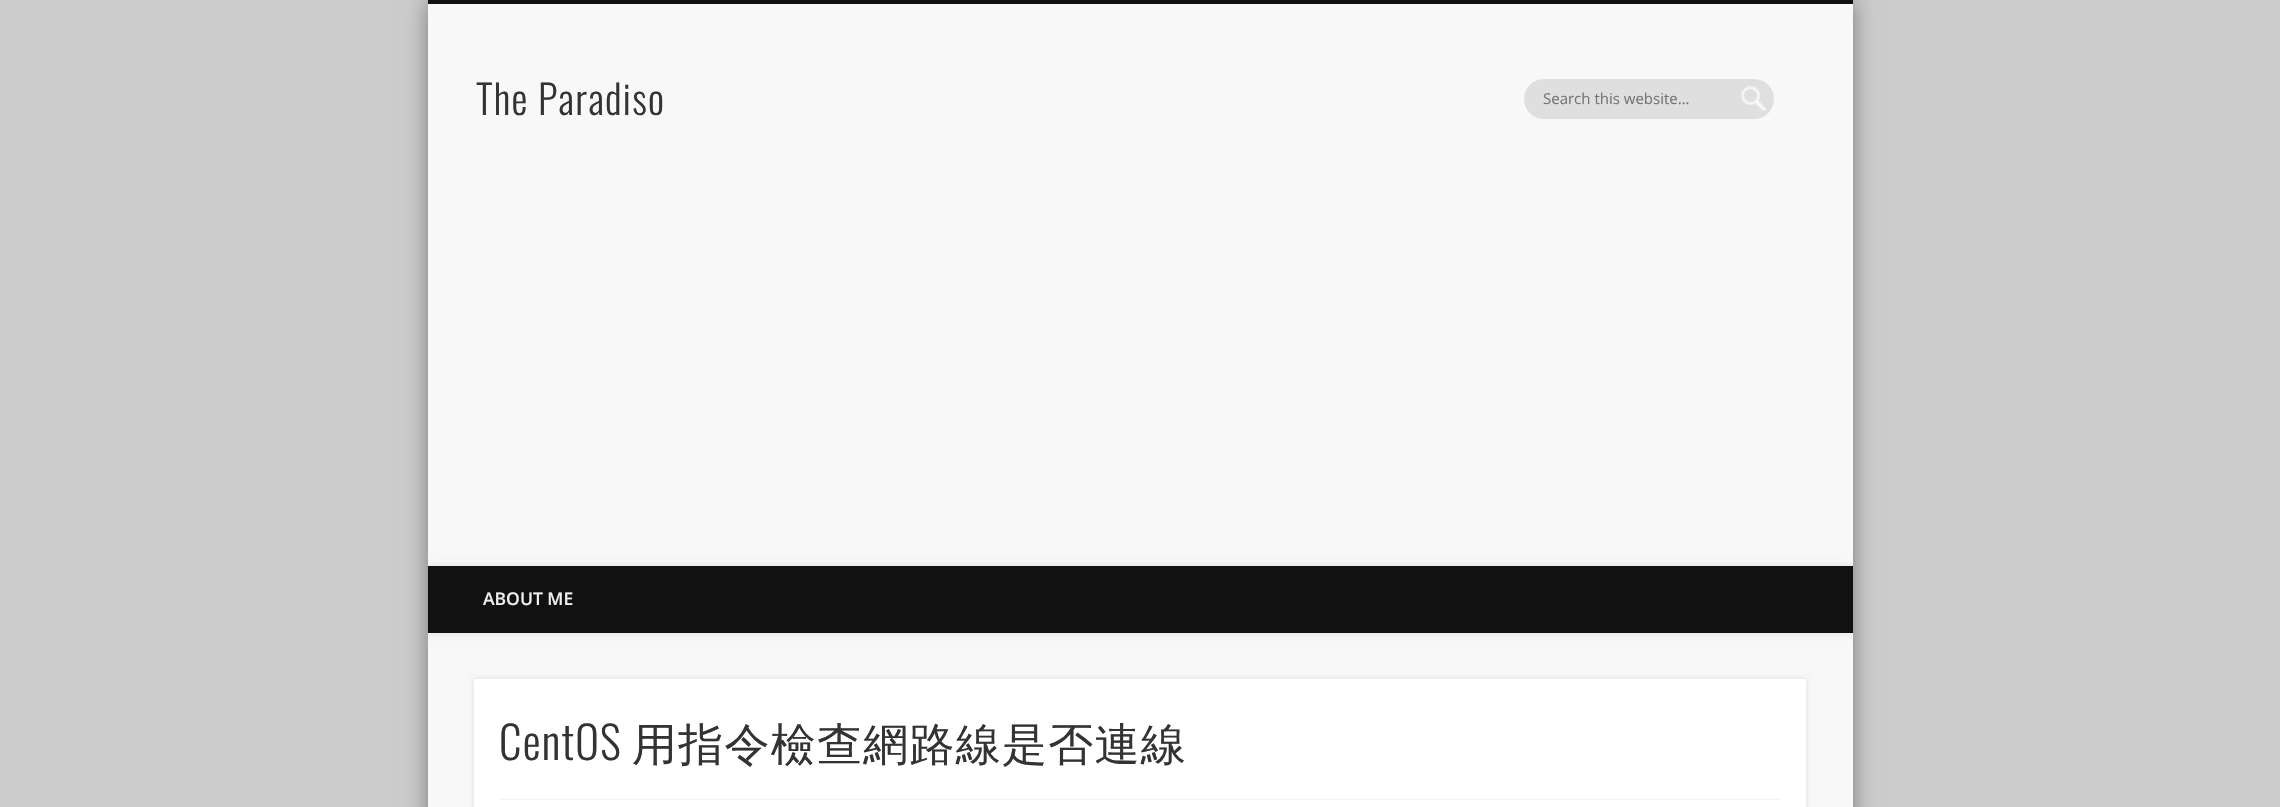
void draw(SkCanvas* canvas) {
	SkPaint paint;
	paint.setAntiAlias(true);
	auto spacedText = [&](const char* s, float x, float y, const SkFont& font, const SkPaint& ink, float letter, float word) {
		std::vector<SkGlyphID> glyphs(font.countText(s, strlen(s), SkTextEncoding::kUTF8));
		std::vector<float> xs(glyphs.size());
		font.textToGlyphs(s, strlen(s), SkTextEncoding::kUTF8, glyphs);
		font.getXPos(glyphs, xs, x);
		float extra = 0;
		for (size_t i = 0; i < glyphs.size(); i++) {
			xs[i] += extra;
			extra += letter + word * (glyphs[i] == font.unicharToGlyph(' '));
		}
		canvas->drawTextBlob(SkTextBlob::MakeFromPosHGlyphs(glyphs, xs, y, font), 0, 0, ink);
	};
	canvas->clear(0xffcccccc);
	paint.setColor(0x66000000);
	paint.setMaskFilter(SkMaskFilter::MakeBlur(kNormal_SkBlurStyle, 11));
	canvas->drawRect(SkRect::MakeXYWH(428, 0, 1425, 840), paint);
	paint.setMaskFilter(nullptr);
	paint.setColor(0xfff8f8f8);
	canvas->drawRect(SkRect::MakeXYWH(428, 4, 1425, 803), paint);
	paint.setColor(0xff111111);
	canvas->drawRect(SkRect::MakeXYWH(428, 0, 1425, 4), paint);
	SkFont f1(fontMgr->matchFamilyStyle("Oswald", SkFontStyle(300, SkFontStyle::kNormal_Width, SkFontStyle::kUpright_Slant)), 40);
	f1.setSubpixel(true);
	paint.setColor(0xff333333);
	spacedText("The Paradiso", 476, 115, f1, paint, 1.25, 0);
	paint.setColor(0xffdfdfdf);
	canvas->drawRoundRect(SkRect::MakeXYWH(1524, 79, 250, 40), 20, 20, paint);
	canvas->drawImageRect(SkImages::DeferredFromEncodedData(SkData::MakeFromFileName("img1.png")), SkRect::MakeXYWH(1741, 86, 26, 25), SkSamplingOptions());
	SkFont f2(fontMgr->matchFamilyStyle("Open Sans", SkFontStyle::Normal()), 15);
	f2.setSubpixel(true);
	paint.setColor(0xff757575);
	canvas->drawString("Search this website…", 1543, 104, f2, paint);
	canvas->save();
	canvas->clipRect(SkRect::MakeXYWH(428, 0, 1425, 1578));
	paint.setColor(0x1a000000);
	paint.setMaskFilter(SkMaskFilter::MakeBlur(kNormal_SkBlurStyle, 4.5));
	canvas->drawRect(SkRect::MakeXYWH(428, 566, 1425, 67), paint);
	paint.setMaskFilter(nullptr);
	canvas->restore();
	paint.setColor(0xff111111);
	canvas->drawRect(SkRect::MakeXYWH(428, 566, 1425, 67), paint);
	SkFont f3(fontMgr->matchFamilyStyle("Open Sans", SkFontStyle(600, SkFontStyle::kNormal_Width, SkFontStyle::kUpright_Slant)), 17.5);
	f3.setSubpixel(true);
	paint.setColor(0xfff0f0f0);
	canvas->drawString("ABOUT ME", 483, 605, f3, paint);
	paint.setColor(0x1a000000);
	paint.setMaskFilter(SkMaskFilter::MakeBlur(kNormal_SkBlurStyle, 3));
	canvas->drawRect(SkRect::MakeXYWH(474, 679, 1332, 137), paint);
	paint.setMaskFilter(nullptr);
	paint.setColor(0xffffffff);
	canvas->drawRect(SkRect::MakeXYWH(474, 679, 1332, 128), paint);
	SkFont f4(fontMgr->matchFamilyStyle("Oswald", SkFontStyle(300, SkFontStyle::kNormal_Width, SkFontStyle::kUpright_Slant)), 45);
	f4.setSubpixel(true);
	paint.setColor(0xff333333);
	spacedText("CentOS", 499, 760, f4, paint, 1.25, 0);
	SkFont f5(fontMgr->matchFamilyStyle("WenQuanYi Zen Hei", SkFontStyle(500, SkFontStyle::kNormal_Width, SkFontStyle::kUpright_Slant)), 45);
	f5.setSubpixel(true);
	spacedText("用指令檢查網路線是否連線", 632, 760, f5, paint, 1.25, 0);
	paint.setColor(0xfff4f4f4);
	canvas->drawRect(SkRect::MakeXYWH(499, 799, 1282, 1), paint);
}
